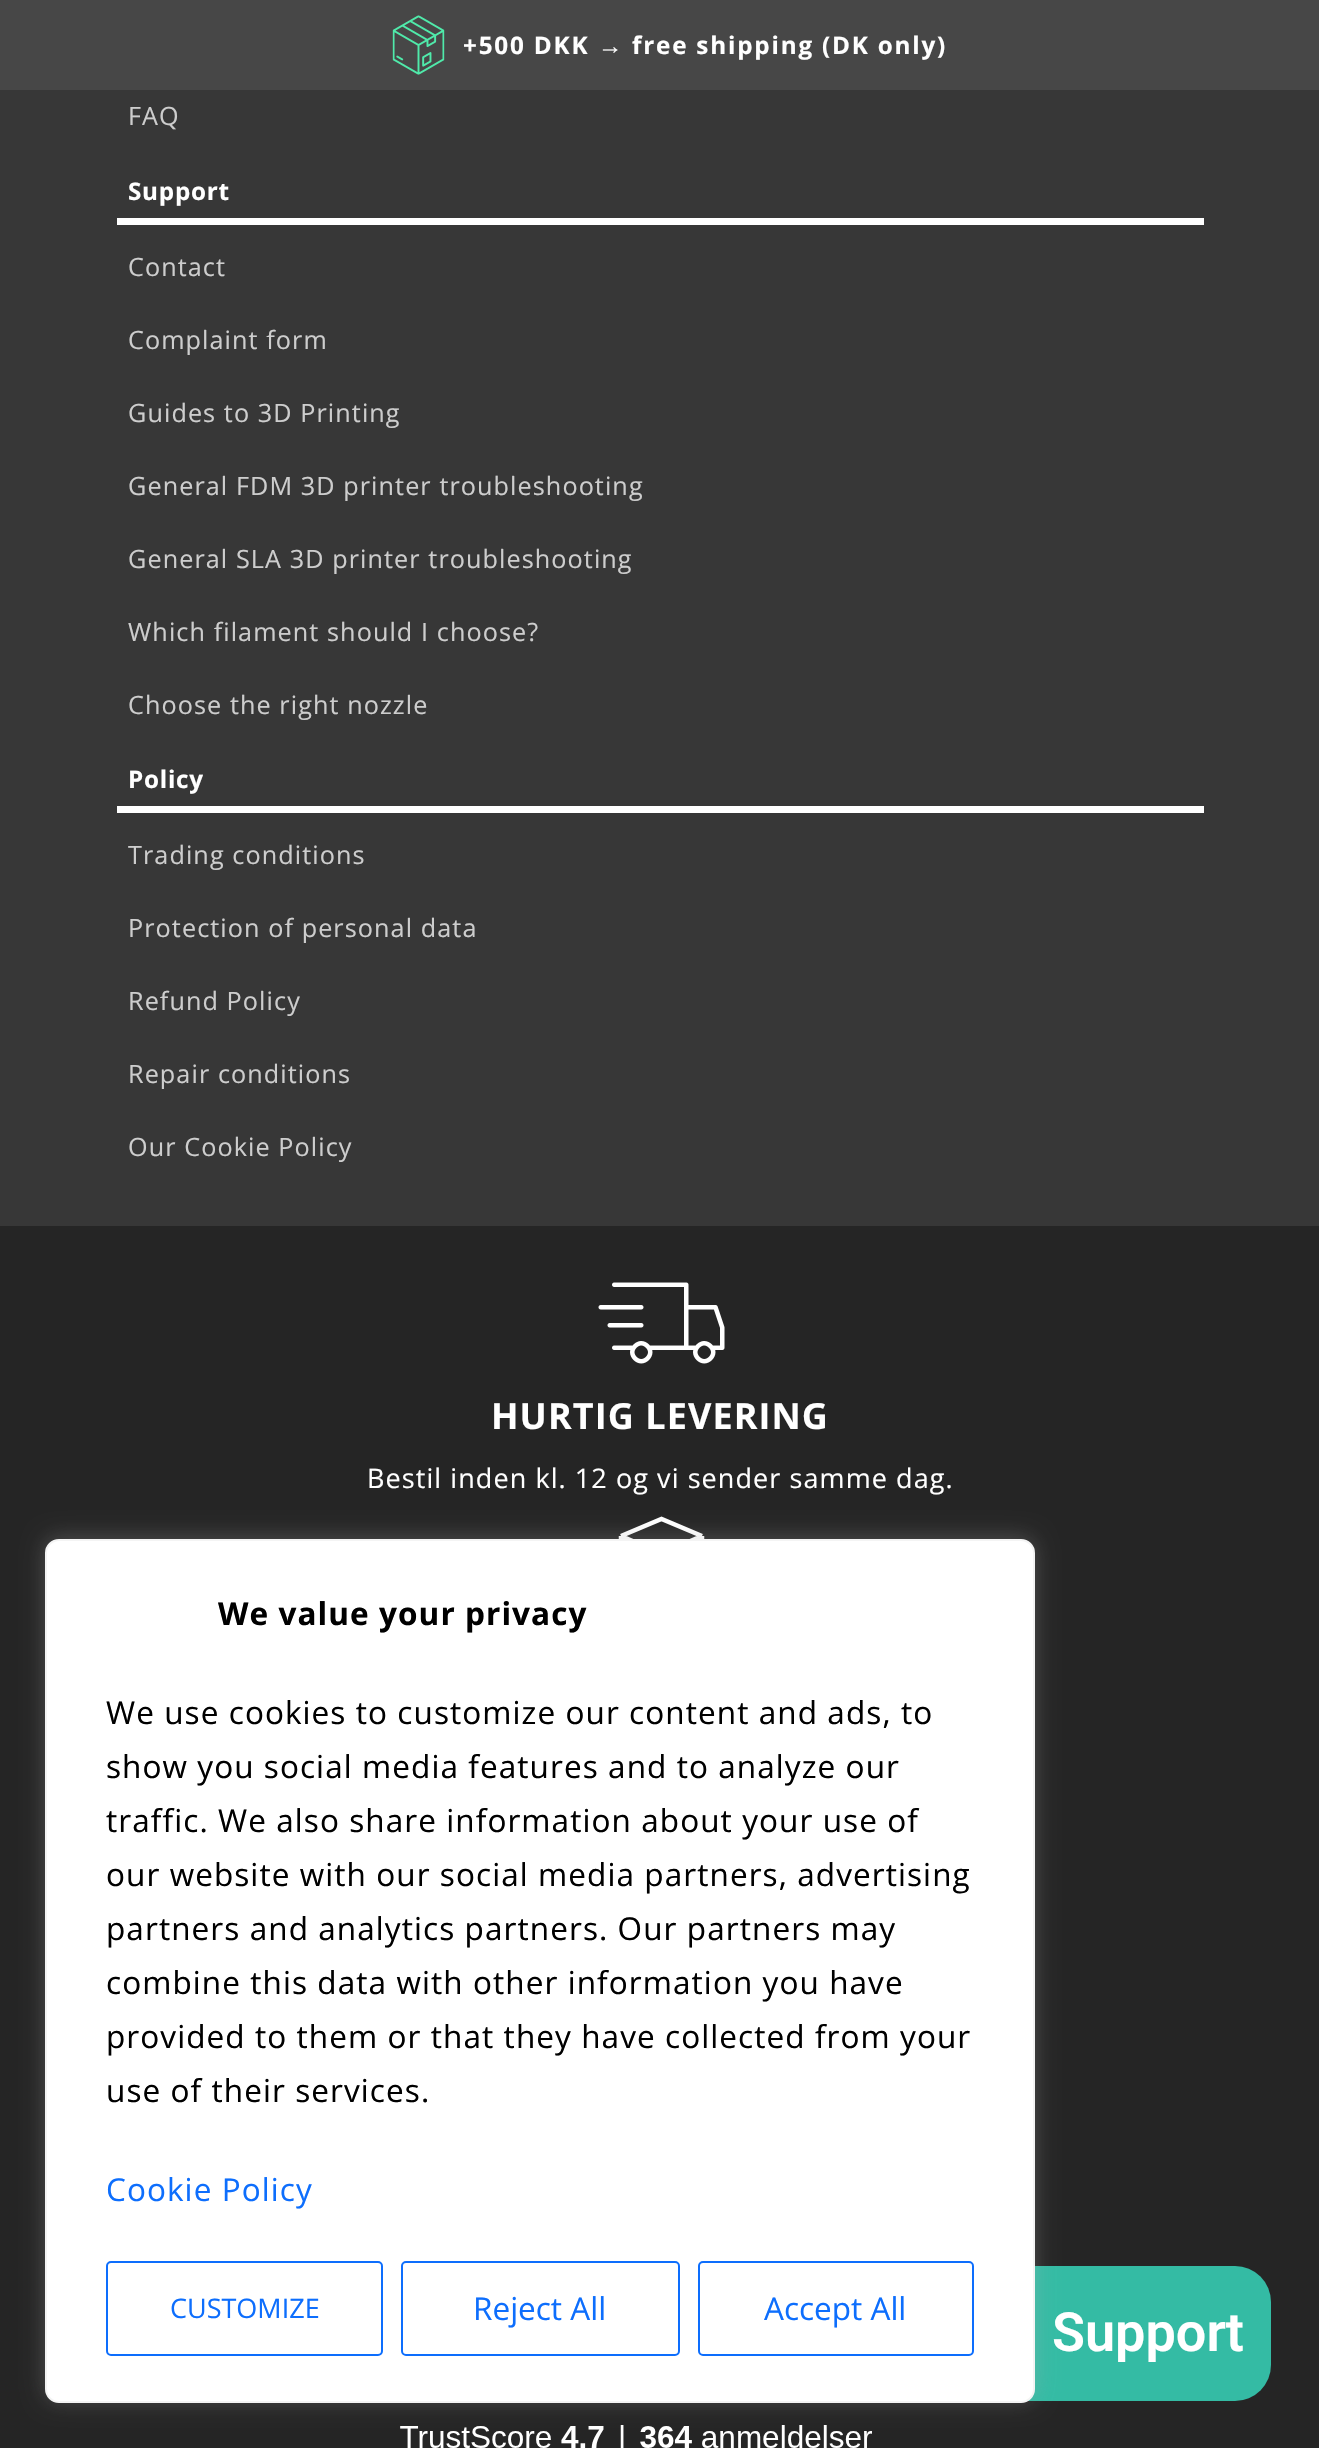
void draw(SkCanvas* canvas) {
	SkPaint paint;
	paint.setAntiAlias(true);
	auto spacedText = [&](const char* s, float x, float y, const SkFont& font, const SkPaint& ink, float letter, float word) {
		std::vector<SkGlyphID> glyphs(font.countText(s, strlen(s), SkTextEncoding::kUTF8));
		std::vector<float> xs(glyphs.size());
		font.textToGlyphs(s, strlen(s), SkTextEncoding::kUTF8, glyphs);
		font.getXPos(glyphs, xs, x);
		float extra = 0;
		for (size_t i = 0; i < glyphs.size(); i++) {
			xs[i] += extra;
			extra += letter + word * (glyphs[i] == font.unicharToGlyph(' '));
		}
		canvas->drawTextBlob(SkTextBlob::MakeFromPosHGlyphs(glyphs, xs, y, font), 0, 0, ink);
	};
	auto svgPath = [&](const char* data, bool evenOdd = false) {
		SkPath result = *SkParsePath::FromSVGString(data);
		if (evenOdd) result.setFillType(SkPathFillType::kEvenOdd);
		return result;
	};
	canvas->clear(0xff373737);
	paint.setColor(0xff474747);
	canvas->drawRect(SkRect::MakeXYWH(0, 0, 1319, 90), paint);
	canvas->drawImageRect(SkImages::DeferredFromEncodedData(SkData::MakeFromFileName("img1.png")), SkRect::MakeXYWH(392, 15, 53, 60), SkSamplingOptions());
	SkFont f1(fontMgr->matchFamilyStyle("Open Sans", SkFontStyle::Bold()), 24.25);
	f1.setSubpixel(true);
	paint.setColor(0xffffffff);
	spacedText("+500 DKK", 463, 54, f1, paint, 1.8, 0);
	SkFont f2(fontMgr->matchFamilyStyle("Liberation Sans", SkFontStyle::Bold()), 24.25);
	f2.setSubpixel(true);
	spacedText("→", 598, 54, f2, paint, 1.8, 0);
	spacedText("free shipping (DK only)", 632, 54, f1, paint, 1.8, 0);
	SkFont f3(fontMgr->matchFamilyStyle("Open Sans", SkFontStyle::Normal()), 25.2);
	f3.setSubpixel(true);
	paint.setColor(0xffcdcdcd);
	spacedText("FAQ", 128, 125, f3, paint, 1.08, 0);
	paint.setColor(0xffffffff);
	canvas->drawRect(SkRect::MakeXYWH(117, 218, 1087, 7), paint);
	spacedText("Support", 128, 200, f1, paint, 0.75, 0);
	paint.setColor(0xffcdcdcd);
	spacedText("Contact", 128, 276, f3, paint, 1.08, 0);
	spacedText("Complaint form", 128, 349, f3, paint, 1.08, 0);
	spacedText("Guides to 3D Printing", 128, 422, f3, paint, 1.08, 0);
	spacedText("General FDM 3D printer troubleshooting", 128, 495, f3, paint, 1.08, 0);
	spacedText("General SLA 3D printer troubleshooting", 128, 568, f3, paint, 1.08, 0);
	spacedText("Which filament should I choose?", 128, 641, f3, paint, 1.08, 0);
	spacedText("Choose the right nozzle", 128, 714, f3, paint, 1.08, 0);
	paint.setColor(0xffffffff);
	canvas->drawRect(SkRect::MakeXYWH(117, 806, 1087, 7), paint);
	spacedText("Policy", 128, 788, f1, paint, 0.75, 0);
	paint.setColor(0xffcdcdcd);
	spacedText("Trading conditions", 128, 864, f3, paint, 1.08, 0);
	spacedText("Protection of personal data", 128, 937, f3, paint, 1.08, 0);
	spacedText("Refund Policy", 128, 1010, f3, paint, 1.08, 0);
	spacedText("Repair conditions", 128, 1083, f3, paint, 1.08, 0);
	spacedText("Our Cookie Policy", 128, 1156, f3, paint, 1.08, 0);
	paint.setColor(0xff252525);
	canvas->drawRect(SkRect::MakeXYWH(0, 1226, 1319, 1222), paint);
	canvas->drawImageRect(SkImages::DeferredFromEncodedData(SkData::MakeFromFileName("img2.png")), SkRect::MakeXYWH(598, 1282, 127, 82), SkSamplingOptions());
	SkFont f4(fontMgr->matchFamilyStyle("Open Sans", SkFontStyle::Bold()), 36);
	f4.setSubpixel(true);
	paint.setColor(0xffffffff);
	spacedText("HURTIG LEVERING", 491, 1429, f4, paint, 1.08, 0);
	SkFont f5(fontMgr->matchFamilyStyle("Open Sans", SkFontStyle::Normal()), 27);
	f5.setSubpixel(true);
	spacedText("Bestil inden kl. 12 og vi sender samme dag.", 367, 1488, f5, paint, 1.08, 0);
	paint.setStroke(true);
	paint.setStrokeWidth(4.5);
	canvas->drawPath(svgPath("M661.5 1600L702 1582.5V1536M661.5 1600L621 1582.5V1536M661.5 1600V1553.5M702 1536L661.5 1519L621 1536M702 1536L661.5 1553.5M621 1536L661.5 1553.5"), paint);
	canvas->drawImageRect(SkImages::DeferredFromEncodedData(SkData::MakeFromFileName("img3.png")), SkRect::MakeXYWH(400, 2425, 472, 23), SkSamplingOptions());
	paint.setStroke(false);
	paint.setColor(0xff34bba4);
	canvas->drawRoundRect(SkRect::MakeXYWH(938, 2266, 333, 135), 36, 36, paint);
	paint.setColor(0x4dacabab);
	paint.setMaskFilter(SkMaskFilter::MakeBlur(kNormal_SkBlurStyle, 11));
	canvas->drawRoundRect(SkRect::MakeXYWH(45, 1537, 990, 864), 14, 14, paint);
	paint.setMaskFilter(nullptr);
	paint.setColor(0xffffffff);
	canvas->drawRoundRect(SkRect::MakeXYWH(46, 1540, 988, 862), 13, 13, paint);
	paint.setStroke(true);
	paint.setStrokeWidth(2);
	paint.setColor(0xfff4f4f4);
	canvas->drawRoundRect(SkRect::MakeXYWH(46, 1540, 988, 862), 13, 13, paint);
	SkFont f6(fontMgr->matchFamilyStyle("Open Sans", SkFontStyle::Bold()), 31.5);
	f6.setSubpixel(true);
	paint.setStroke(false);
	paint.setColor(0xff000000);
	spacedText("We value your privacy", 218, 1625, f6, paint, 1.08, 0);
	SkFont f7(fontMgr->matchFamilyStyle("Open Sans", SkFontStyle::Normal()), 31.5);
	f7.setSubpixel(true);
	spacedText("We use cookies to customize our content and ads, to", 106, 1724, f7, paint, 1.08, 0);
	spacedText("show you social media features and to analyze our", 106, 1778, f7, paint, 1.08, 0);
	spacedText("traffic. We also share information about your use of", 106, 1832, f7, paint, 1.08, 0);
	spacedText("our website with our social media partners, advertising", 106, 1886, f7, paint, 1.08, 0);
	spacedText("partners and analytics partners. Our partners may", 106, 1940, f7, paint, 1.08, 0);
	spacedText("combine this data with other information you have", 106, 1994, f7, paint, 1.08, 0);
	spacedText("provided to them or that they have collected from your", 106, 2048, f7, paint, 1.08, 0);
	spacedText("use of their services.", 106, 2102, f7, paint, 1.08, 0);
	paint.setColor(0xff0d6efd);
	spacedText("Cookie Policy", 106, 2201, f7, paint, 1.08, 0);
	paint.setStroke(true);
	canvas->drawRoundRect(SkRect::MakeXYWH(107, 2262, 275, 93), 4, 4, paint);
	paint.setStroke(false);
	canvas->drawString("CUSTOMIZE", 170, 2318, f5, paint);
	paint.setStroke(true);
	canvas->drawRoundRect(SkRect::MakeXYWH(402, 2262, 277, 93), 4, 4, paint);
	paint.setStroke(false);
	canvas->drawString("Reject All", 473, 2320, f7, paint);
	paint.setStroke(true);
	canvas->drawRoundRect(SkRect::MakeXYWH(699, 2262, 274, 93), 4, 4, paint);
	paint.setStroke(false);
	canvas->drawString("Accept All", 764, 2320, f7, paint);
	SkFont f8(fontMgr->matchFamilyStyle("Roboto", SkFontStyle(600, SkFontStyle::kNormal_Width, SkFontStyle::kUpright_Slant)), 54);
	f8.setSubpixel(true);
	paint.setColor(0xffffffff);
	canvas->drawString("Support", 1052, 2351, f8, paint);
}
